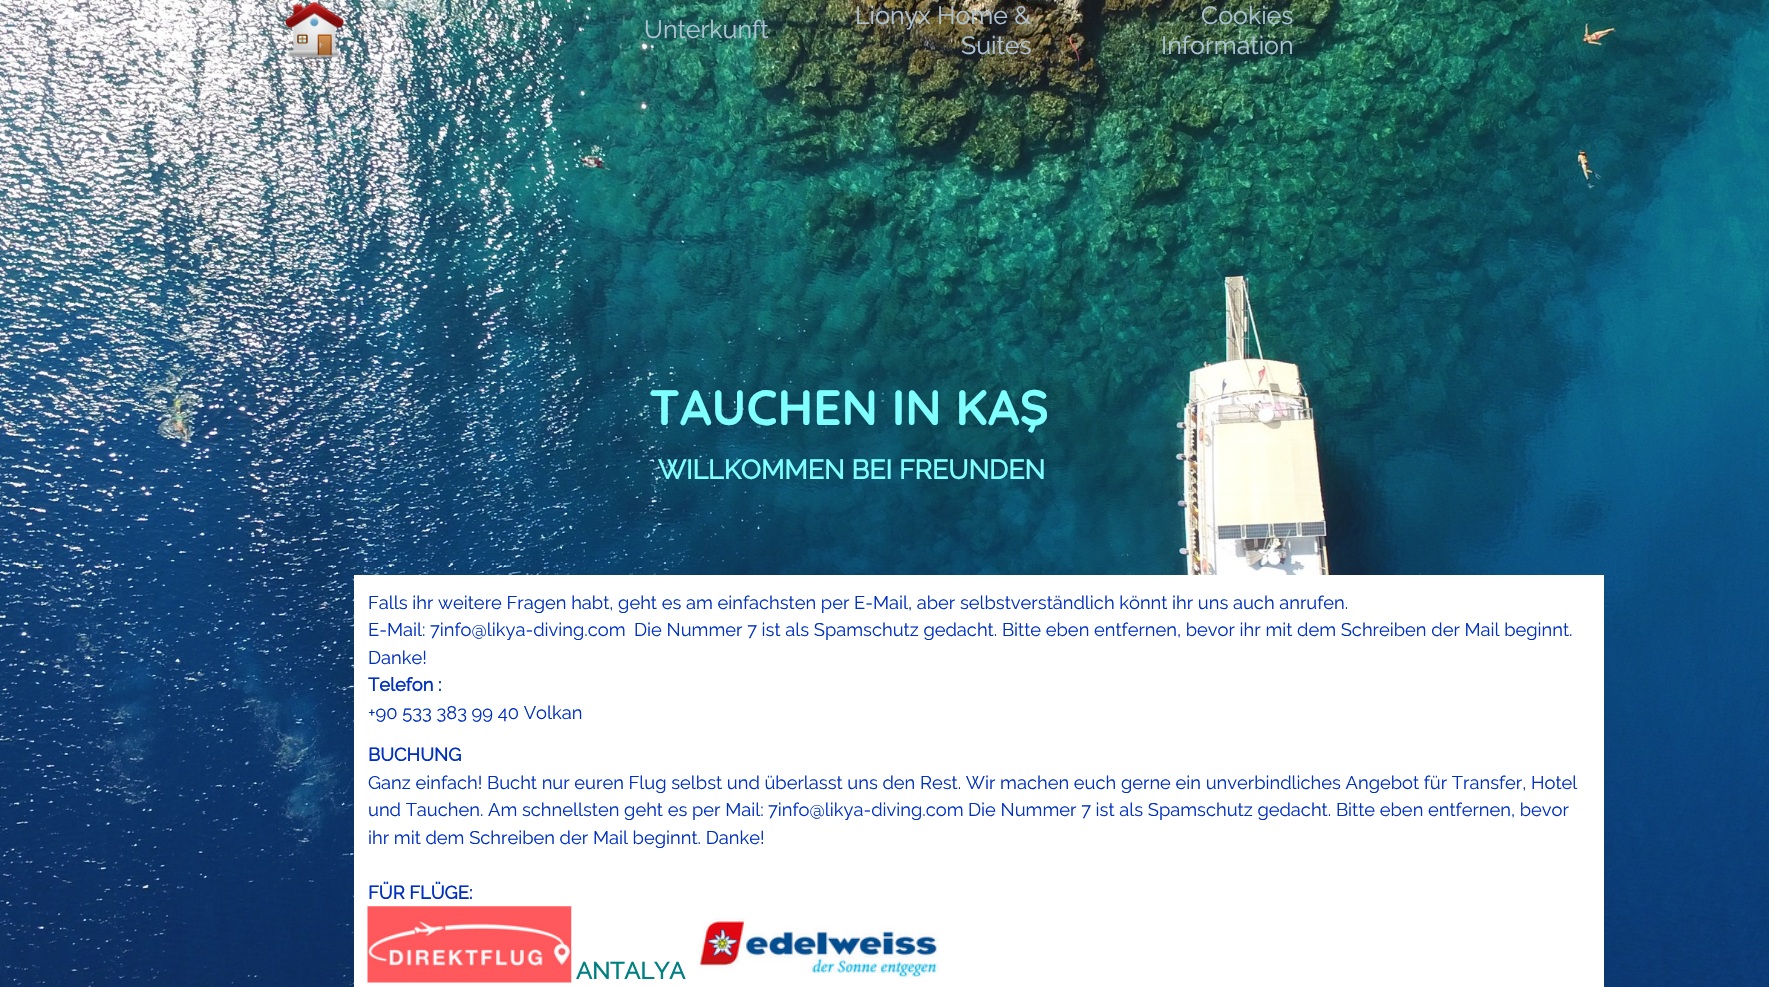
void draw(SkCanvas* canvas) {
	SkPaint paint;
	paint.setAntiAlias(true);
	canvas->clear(0xffffffff);
	canvas->drawImageRect(SkImages::DeferredFromEncodedData(SkData::MakeFromFileName("img1.png")), SkRect::MakeXYWH(0, 0, 1769, 987), SkSamplingOptions());
	canvas->drawImageRect(SkImages::DeferredFromEncodedData(SkData::MakeFromFileName("img2.png")), SkRect::MakeXYWH(285, 1, 59, 58), SkSamplingOptions());
	SkFont f1(fontMgr->matchFamilyStyle("Raleway", SkFontStyle(100, SkFontStyle::kNormal_Width, SkFontStyle::kUpright_Slant)), 25);
	f1.setSubpixel(true);
	paint.setColor(0xffafc4d6);
	canvas->drawString("Unterkunft", 644, 38, f1, paint);
	canvas->drawString("Lionyx Home &", 855, 24, f1, paint);
	canvas->drawString("Suites", 961, 54, f1, paint);
	canvas->drawString("Cookies", 1201, 24, f1, paint);
	canvas->drawString("Information", 1161, 54, f1, paint);
	SkFont f2(fontMgr->matchFamilyStyle("Quicksand", SkFontStyle::Bold()), 49.5);
	f2.setSubpixel(true);
	paint.setColor(0xff80ffff);
	canvas->drawString("TAUCHEN IN KAŞ", 649, 425, f2, paint);
	SkFont f3(fontMgr->matchFamilyStyle("Raleway", SkFontStyle::Bold()), 26.7);
	f3.setSubpixel(true);
	canvas->drawString("WILLKOMMEN BEI FREUNDEN", 658, 479, f3, paint);
	paint.setColor(0xffffffff);
	canvas->drawRect(SkRect::MakeXYWH(354, 575, 1250, 412), paint);
	SkFont f4(fontMgr->matchFamilyStyle("Raleway", SkFontStyle(100, SkFontStyle::kNormal_Width, SkFontStyle::kUpright_Slant)), 18.33);
	f4.setSubpixel(true);
	paint.setColor(0xff0030bf);
	canvas->drawString("Falls ihr weitere Fragen habt, geht es am einfachsten per E-Mail, aber selbstverständlich könnt ihr uns auch anrufen.", 368, 609, f4, paint);
	canvas->drawString("E-Mail:", 368, 636, f4, paint);
	paint.setColor(0xff0032c6);
	canvas->drawString("7info@likya-diving.com", 430, 636, f4, paint);
	paint.setColor(0xff0030bf);
	canvas->drawString("Die Nummer 7 ist als Spamschutz gedacht. Bitte eben entfernen, bevor ihr mit dem Schreiben der Mail beginnt.", 634, 636, f4, paint);
	canvas->drawString("Danke!", 368, 664, f4, paint);
	SkFont f5(fontMgr->matchFamilyStyle("Raleway", SkFontStyle::Bold()), 18.33);
	f5.setSubpixel(true);
	canvas->drawString("Telefon :", 368, 691, f5, paint);
	canvas->drawString("+90 533 383 99 40 Volkan", 368, 719, f4, paint);
	canvas->drawString("BUCHUNG", 368, 761, f5, paint);
	canvas->drawString("Ganz einfach! Bucht nur euren Flug selbst und überlasst uns den Rest. Wir machen euch gerne ein unverbindliches Angebot für Transfer, Hotel", 368, 789, f4, paint);
	canvas->drawString("und Tauchen. Am schnellsten geht es per Mail:", 368, 816, f4, paint);
	paint.setColor(0xff0032c6);
	canvas->drawString("7info@likya-diving.com", 768, 816, f4, paint);
	paint.setColor(0xff0030bf);
	canvas->drawString("Die Nummer 7 ist als Spamschutz gedacht. Bitte eben entfernen, bevor", 968, 816, f4, paint);
	canvas->drawString("ihr mit dem Schreiben der Mail beginnt. Danke!", 368, 844, f4, paint);
	canvas->drawString("FÜR FLÜGE:", 368, 899, f5, paint);
	canvas->drawImageRect(SkImages::DeferredFromEncodedData(SkData::MakeFromFileName("img3.png")), SkRect::MakeXYWH(367, 906, 205, 77), SkSamplingOptions());
	SkFont f6(fontMgr->matchFamilyStyle("Raleway", SkFontStyle::Bold()), 23.5);
	f6.setSubpixel(true);
	paint.setColor(0xff008080);
	canvas->drawString("ANTALYA", 576, 979, f6, paint);
	canvas->drawImageRect(SkImages::DeferredFromEncodedData(SkData::MakeFromFileName("img4.png")), SkRect::MakeXYWH(699, 918, 240, 61), SkSamplingOptions());
}
